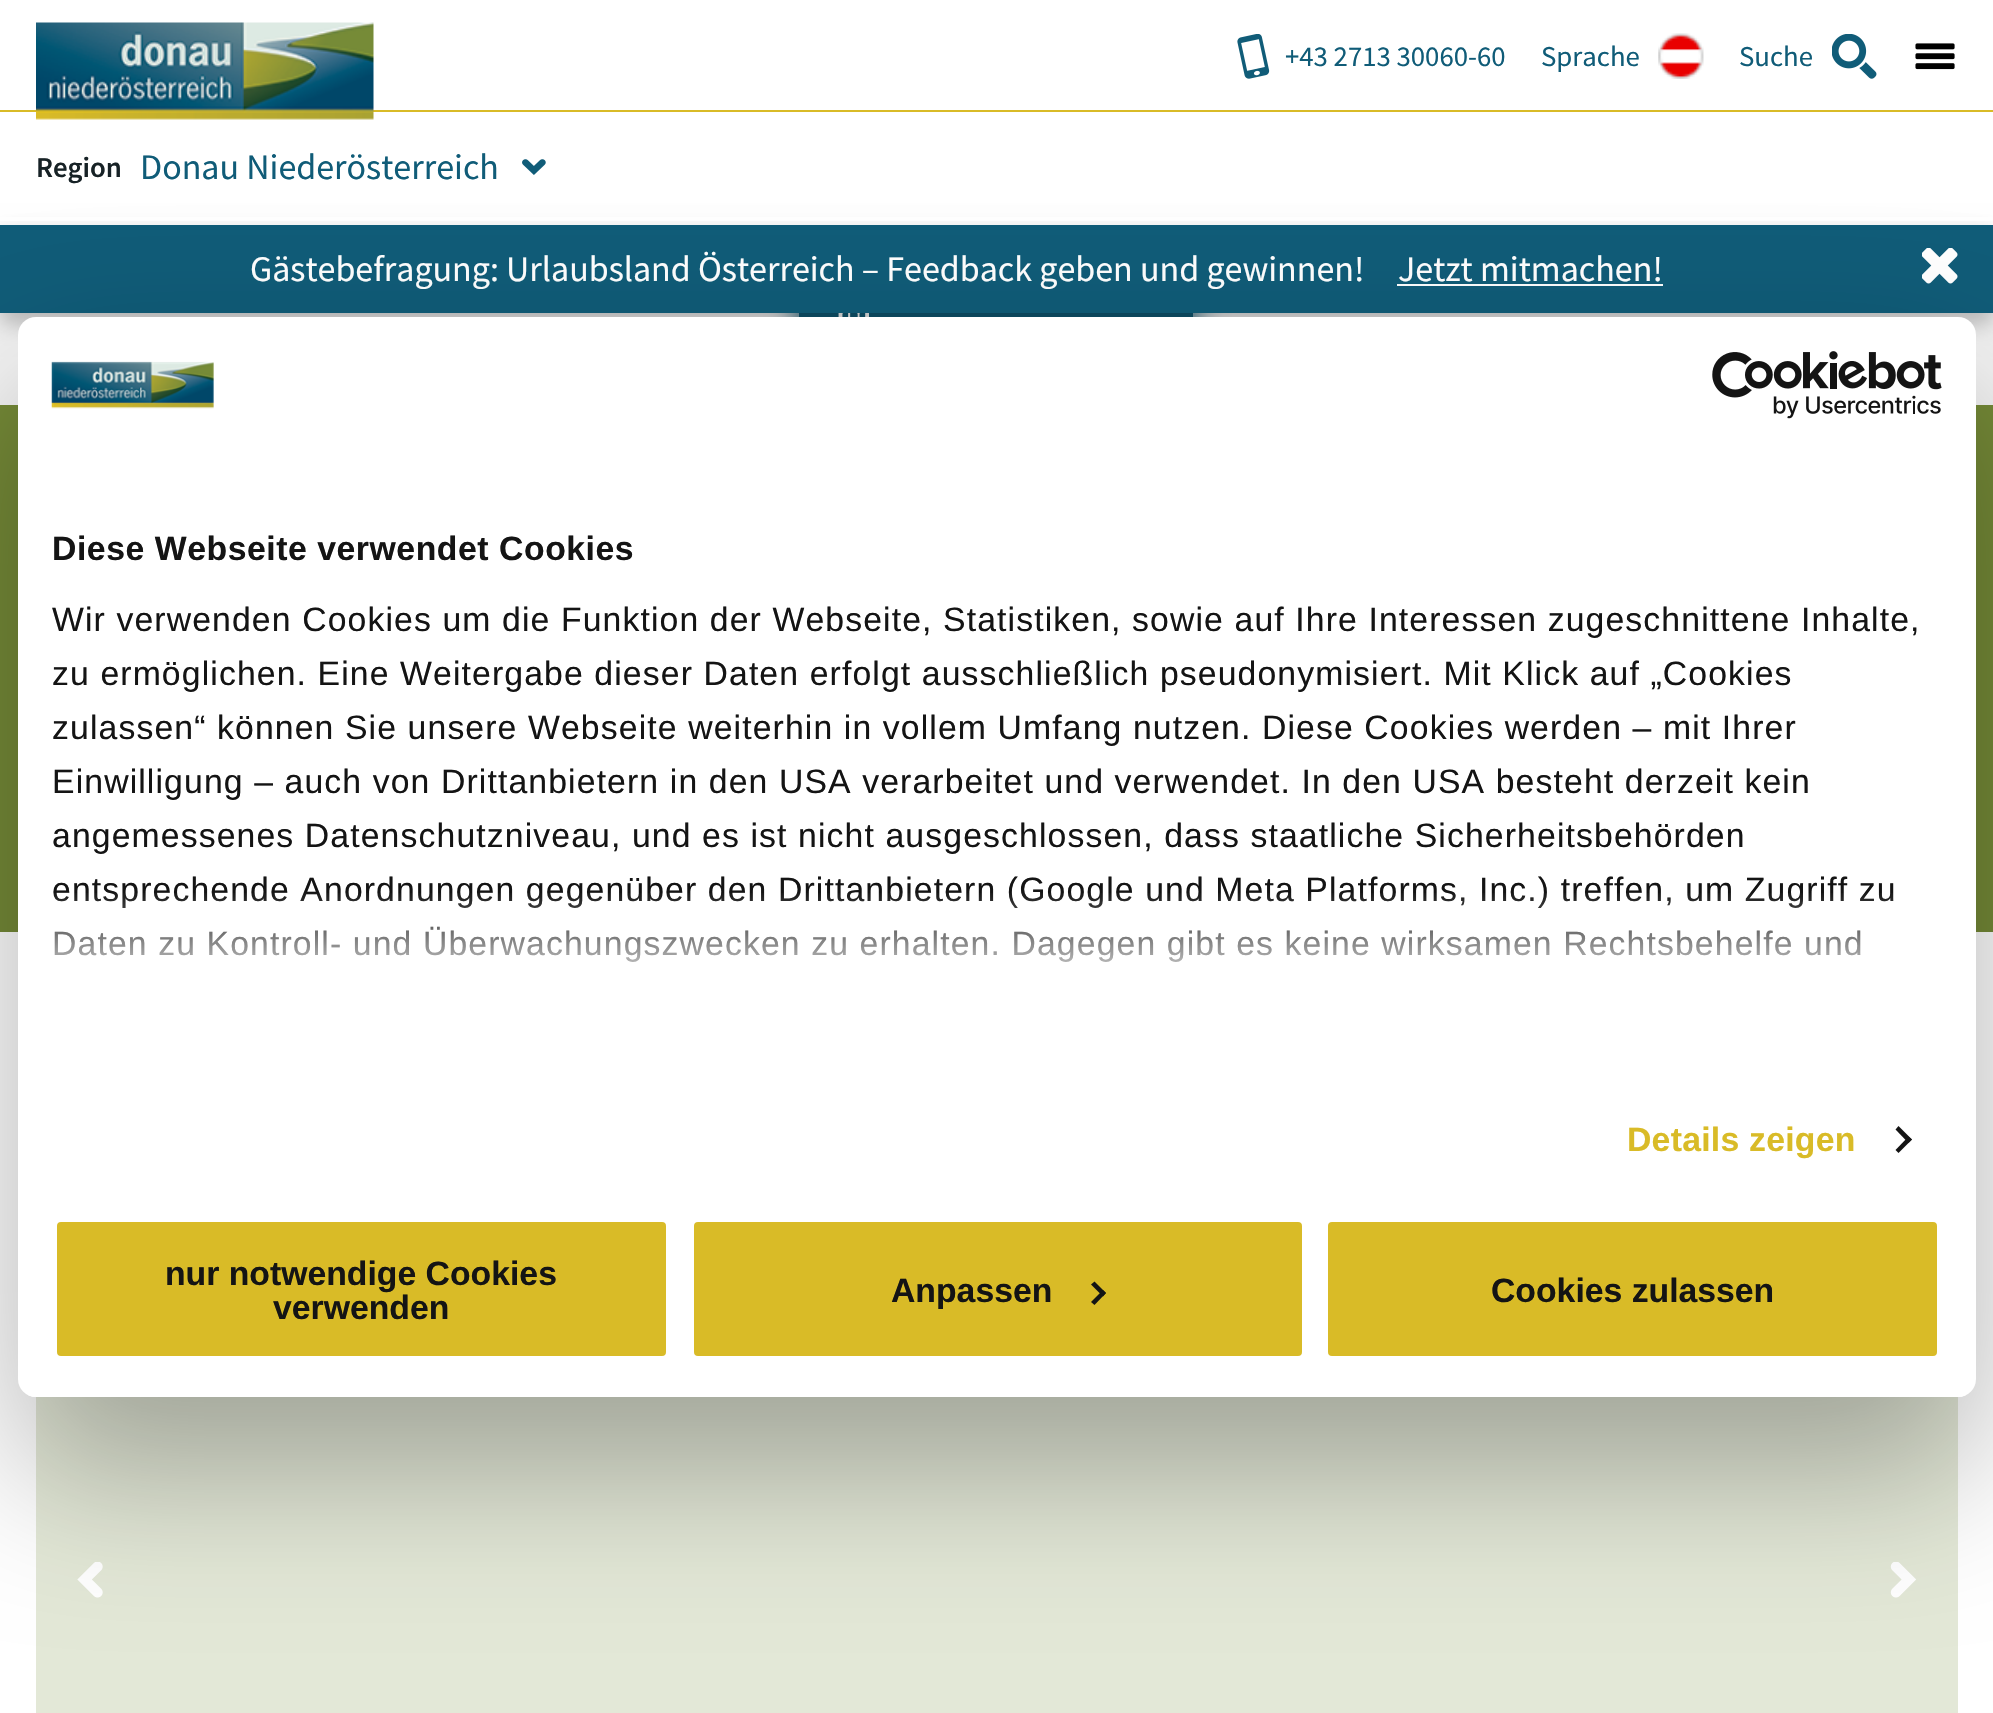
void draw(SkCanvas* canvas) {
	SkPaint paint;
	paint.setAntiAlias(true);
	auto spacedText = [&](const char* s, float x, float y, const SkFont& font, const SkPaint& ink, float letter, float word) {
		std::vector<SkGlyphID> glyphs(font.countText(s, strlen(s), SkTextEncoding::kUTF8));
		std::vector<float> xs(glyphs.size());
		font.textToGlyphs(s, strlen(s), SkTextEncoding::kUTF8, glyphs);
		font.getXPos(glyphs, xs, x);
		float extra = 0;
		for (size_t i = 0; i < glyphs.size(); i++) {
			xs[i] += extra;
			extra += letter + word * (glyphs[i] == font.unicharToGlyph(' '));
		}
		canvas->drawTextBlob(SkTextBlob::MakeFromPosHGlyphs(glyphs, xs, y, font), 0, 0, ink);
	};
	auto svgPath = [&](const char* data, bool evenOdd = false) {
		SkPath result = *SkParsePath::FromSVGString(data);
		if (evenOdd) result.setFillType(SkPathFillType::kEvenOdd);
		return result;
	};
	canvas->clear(0xffffffff);
	paint.setColor(0xffd9bb27);
	canvas->drawRect(SkRect::MakeXYWH(0, 110, 1993, 2), paint);
	canvas->drawImageRect(SkImages::DeferredFromEncodedData(SkData::MakeFromFileName("img1.png")), SkRect::MakeXYWH(36, 22, 338, 98), SkSamplingOptions());
	canvas->drawImageRect(SkImages::DeferredFromEncodedData(SkData::MakeFromFileName("img2.png")), SkRect::MakeXYWH(1237, 34, 33, 45), SkSamplingOptions());
	SkFont f1(fontMgr->matchFamilyStyle("Source Sans Pro", SkFontStyle::Normal()), 28.75);
	f1.setSubpixel(true);
	paint.setColor(0xff105c78);
	canvas->drawString("+43 2713 30060-60", 1285, 66, f1, paint);
	canvas->drawString("Sprache", 1541, 66, f1, paint);
	canvas->drawImageRect(SkImages::DeferredFromEncodedData(SkData::MakeFromFileName("img3.png")), SkRect::MakeXYWH(1658, 33, 46, 46), SkSamplingOptions());
	canvas->drawString("Suche", 1739, 66, f1, paint);
	canvas->drawImageRect(SkImages::DeferredFromEncodedData(SkData::MakeFromFileName("img4.png")), SkRect::MakeXYWH(1832, 34, 45, 45), SkSamplingOptions());
	canvas->drawImageRect(SkImages::DeferredFromEncodedData(SkData::MakeFromFileName("img5.png")), SkRect::MakeXYWH(1915, 43, 40, 27), SkSamplingOptions());
	paint.setColor(0xfff5f5f5);
	canvas->drawRect(SkRect::MakeXYWH(0, 313, 1993, 92), paint);
	paint.setColor(0xff758a37);
	canvas->drawRect(SkRect::MakeXYWH(0, 405, 1993, 527), paint);
	paint.setColor(0xff105c78);
	paint.setMaskFilter(SkMaskFilter::MakeBlur(kNormal_SkBlurStyle, 16));
	canvas->drawRect(SkRect::MakeXYWH(799, 268, 394, 94), paint);
	paint.setMaskFilter(nullptr);
	canvas->drawRect(SkRect::MakeXYWH(799, 313, 394, 4), paint);
	canvas->drawImageRect(SkImages::DeferredFromEncodedData(SkData::MakeFromFileName("img8.png")), SkRect::MakeXYWH(838, 313, 31, 4), SkSamplingOptions());
	paint.setColor(0x40000000);
	paint.setMaskFilter(SkMaskFilter::MakeBlur(kNormal_SkBlurStyle, 11));
	canvas->drawRect(SkRect::MakeXYWH(0, 236, 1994, 88), paint);
	paint.setMaskFilter(nullptr);
	paint.setColor(0xffffffff);
	canvas->drawRect(SkRect::MakeXYWH(0, 217, 1993, 4), paint);
	SkFont f2(fontMgr->matchFamilyStyle("Source Sans Pro", SkFontStyle(600, SkFontStyle::kNormal_Width, SkFontStyle::kUpright_Slant)), 28.75);
	f2.setSubpixel(true);
	paint.setColor(0xff172226);
	canvas->drawString("Region", 36, 177, f2, paint);
	SkFont f3(fontMgr->matchFamilyStyle("Source Sans Pro", SkFontStyle::Normal()), 36);
	f3.setSubpixel(true);
	paint.setColor(0xff105c78);
	canvas->drawString("Donau Niederösterreich", 140, 179, f3, paint);
	canvas->drawImageRect(SkImages::DeferredFromEncodedData(SkData::MakeFromFileName("img6.png")), SkRect::MakeXYWH(522, 159, 24, 16), SkSamplingOptions());
	canvas->drawRect(SkRect::MakeXYWH(0, 225, 1993, 88), paint);
	paint.setColor(0xffffffff);
	canvas->drawString("Gästebefragung: Urlaubsland Österreich – Feedback geben und gewinnen!", 250, 281, f3, paint);
	canvas->drawString("Jetzt mitmachen!", 1398, 281, f3, paint);
	canvas->drawRect(SkRect::MakeXYWH(1397, 284, 266, 2), paint);
	canvas->drawImageRect(SkImages::DeferredFromEncodedData(SkData::MakeFromFileName("img7.png")), SkRect::MakeXYWH(1922, 248, 36, 36), SkSamplingOptions());
	paint.setColor(0xffe3e8d7);
	canvas->drawRect(SkRect::MakeXYWH(36, 1397, 1922, 316), paint);
	canvas->drawImageRect(SkImages::DeferredFromEncodedData(SkData::MakeFromFileName("img9.png")), SkRect::MakeXYWH(77, 1562, 26, 36), SkSamplingOptions());
	canvas->drawImageRect(SkImages::DeferredFromEncodedData(SkData::MakeFromFileName("img10.png")), SkRect::MakeXYWH(1890, 1562, 26, 36), SkSamplingOptions());
	paint.setColor(0x4d000000);
	paint.setMaskFilter(SkMaskFilter::MakeBlur(kNormal_SkBlurStyle, 76.5));
	canvas->drawRoundRect(SkRect::MakeXYWH(18, 389, 1958, 1080), 18, 18, paint);
	paint.setMaskFilter(nullptr);
	paint.setColor(0xffffffff);
	canvas->drawRoundRect(SkRect::MakeXYWH(18, 317, 1958, 1080), 18, 18, paint);
	canvas->drawImageRect(SkImages::DeferredFromEncodedData(SkData::MakeFromFileName("img11.png")), SkRect::MakeXYWH(51, 361, 163, 48), SkSamplingOptions());
	canvas->drawImageRect(SkImages::DeferredFromEncodedData(SkData::MakeFromFileName("img12.png")), SkRect::MakeXYWH(1712, 351, 230, 68), SkSamplingOptions());
	SkFont f4(fontMgr->matchFamilyStyle("Liberation Sans", SkFontStyle::Bold()), 33.75);
	f4.setSubpixel(true);
	paint.setColor(0xff141414);
	spacedText("Diese Webseite verwendet Cookies", 52, 560, f4, paint, 0.55, 0);
	SkFont f5(fontMgr->matchFamilyStyle("Liberation Sans", SkFontStyle::Normal()), 33.75);
	f5.setSubpixel(true);
	spacedText("Wir verwenden Cookies um die Funktion der Webseite, Statistiken, sowie auf Ihre Interessen zugeschnittene Inhalte,", 52, 631, f5, paint, 1.12, 0);
	spacedText("zu ermöglichen. Eine Weitergabe dieser Daten erfolgt ausschließlich pseudonymisiert. Mit Klick auf „Cookies", 52, 685, f5, paint, 1.12, 0);
	spacedText("zulassen“ können Sie unsere Webseite weiterhin in vollem Umfang nutzen. Diese Cookies werden – mit Ihrer", 52, 739, f5, paint, 1.12, 0);
	spacedText("Einwilligung – auch von Drittanbietern in den USA verarbeitet und verwendet. In den USA besteht derzeit kein", 52, 793, f5, paint, 1.12, 0);
	spacedText("angemessenes Datenschutzniveau, und es ist nicht ausgeschlossen, dass staatliche Sicherheitsbehörden", 52, 847, f5, paint, 1.12, 0);
	spacedText("entsprechende Anordnungen gegenüber den Drittanbietern (Google und Meta Platforms, Inc.) treffen, um Zugriff zu", 52, 901, f5, paint, 1.12, 0);
	spacedText("Daten zu Kontroll- und Überwachungszwecken zu erhalten. Dagegen gibt es keine wirksamen Rechtsbehelfe und", 52, 955, f5, paint, 1.12, 0);
	{
		const SkColor colors[] = {0xffffffff, 0xccffffff, 0x00ffffff};
		const float stops[] = {0, 0.5, 1};
		const SkPoint ends[] = {{982, 1060}, {982, 891}};
		paint.setShader(SkGradientShader::MakeLinear(ends, colors, stops, 3, SkTileMode::kClamp));
		paint.setAlpha(255);
	}
	canvas->drawRect(SkRect::MakeXYWH(53, 893, 1841, 69), paint);
	paint.setShader(nullptr);
	paint.setColor(0xffd9bb27);
	spacedText("Details zeigen", 1627, 1151, f4, paint, 0.25, 0);
	paint.setColor(0xff141414);
	canvas->drawPath(svgPath("M1898.5 1126L1912 1139.5L1908.5 1143L1895.5 1129.5Z"), paint);
	canvas->drawPath(svgPath("M1908.5 1136.5L1912 1139.5L1898.5 1153L1895.5 1150Z"), paint);
	canvas->save();
	canvas->clipPath(svgPath("M36 317H1958C1968 317 1976 325 1976 335V1379C1976 1389 1968 1397 1958 1397H36C26 1397 18 1389 18 1379V335C18 325 26 317 36 317Z"), true);
	paint.setColor(0xffffffff);
	canvas->drawRect(SkRect::MakeXYWH(28, 1395, 1938, 2), paint);
	canvas->restore();
	paint.setColor(0xffd9bb27);
	canvas->drawRoundRect(SkRect::MakeXYWH(54.5, 1219.5, 614, 139), 6.5, 6.5, paint);
	paint.setStroke(true);
	paint.setStrokeWidth(5);
	paint.setColor(0xffffffff);
	canvas->drawRoundRect(SkRect::MakeXYWH(54.5, 1219.5, 614, 139), 6.5, 6.5, paint);
	paint.setStroke(false);
	paint.setColor(0xff141414);
	canvas->drawString("nur notwendige Cookies", 165, 1285, f4, paint);
	canvas->drawString("verwenden", 273, 1319, f4, paint);
	paint.setColor(0xffd9bb27);
	canvas->drawRoundRect(SkRect::MakeXYWH(691.5, 1219.5, 613, 139), 6.5, 6.5, paint);
	paint.setStroke(true);
	paint.setColor(0xffffffff);
	canvas->drawRoundRect(SkRect::MakeXYWH(691.5, 1219.5, 613, 139), 6.5, 6.5, paint);
	paint.setStroke(false);
	paint.setColor(0xff141414);
	canvas->drawString("Anpassen", 891, 1302, f4, paint);
	canvas->drawPath(svgPath("M1094.5 1281.5L1106 1293L1103 1296.5L1091 1284.5Z"), paint);
	canvas->drawPath(svgPath("M1103 1290L1106 1293L1094.5 1305L1091 1302Z"), paint);
	paint.setColor(0xffd9bb27);
	canvas->drawRoundRect(SkRect::MakeXYWH(1325.5, 1219.5, 614, 139), 6.5, 6.5, paint);
	paint.setStroke(true);
	paint.setColor(0xffffffff);
	canvas->drawRoundRect(SkRect::MakeXYWH(1325.5, 1219.5, 614, 139), 6.5, 6.5, paint);
	paint.setStroke(false);
	paint.setColor(0xff141414);
	canvas->drawString("Cookies zulassen", 1491, 1302, f4, paint);
}
